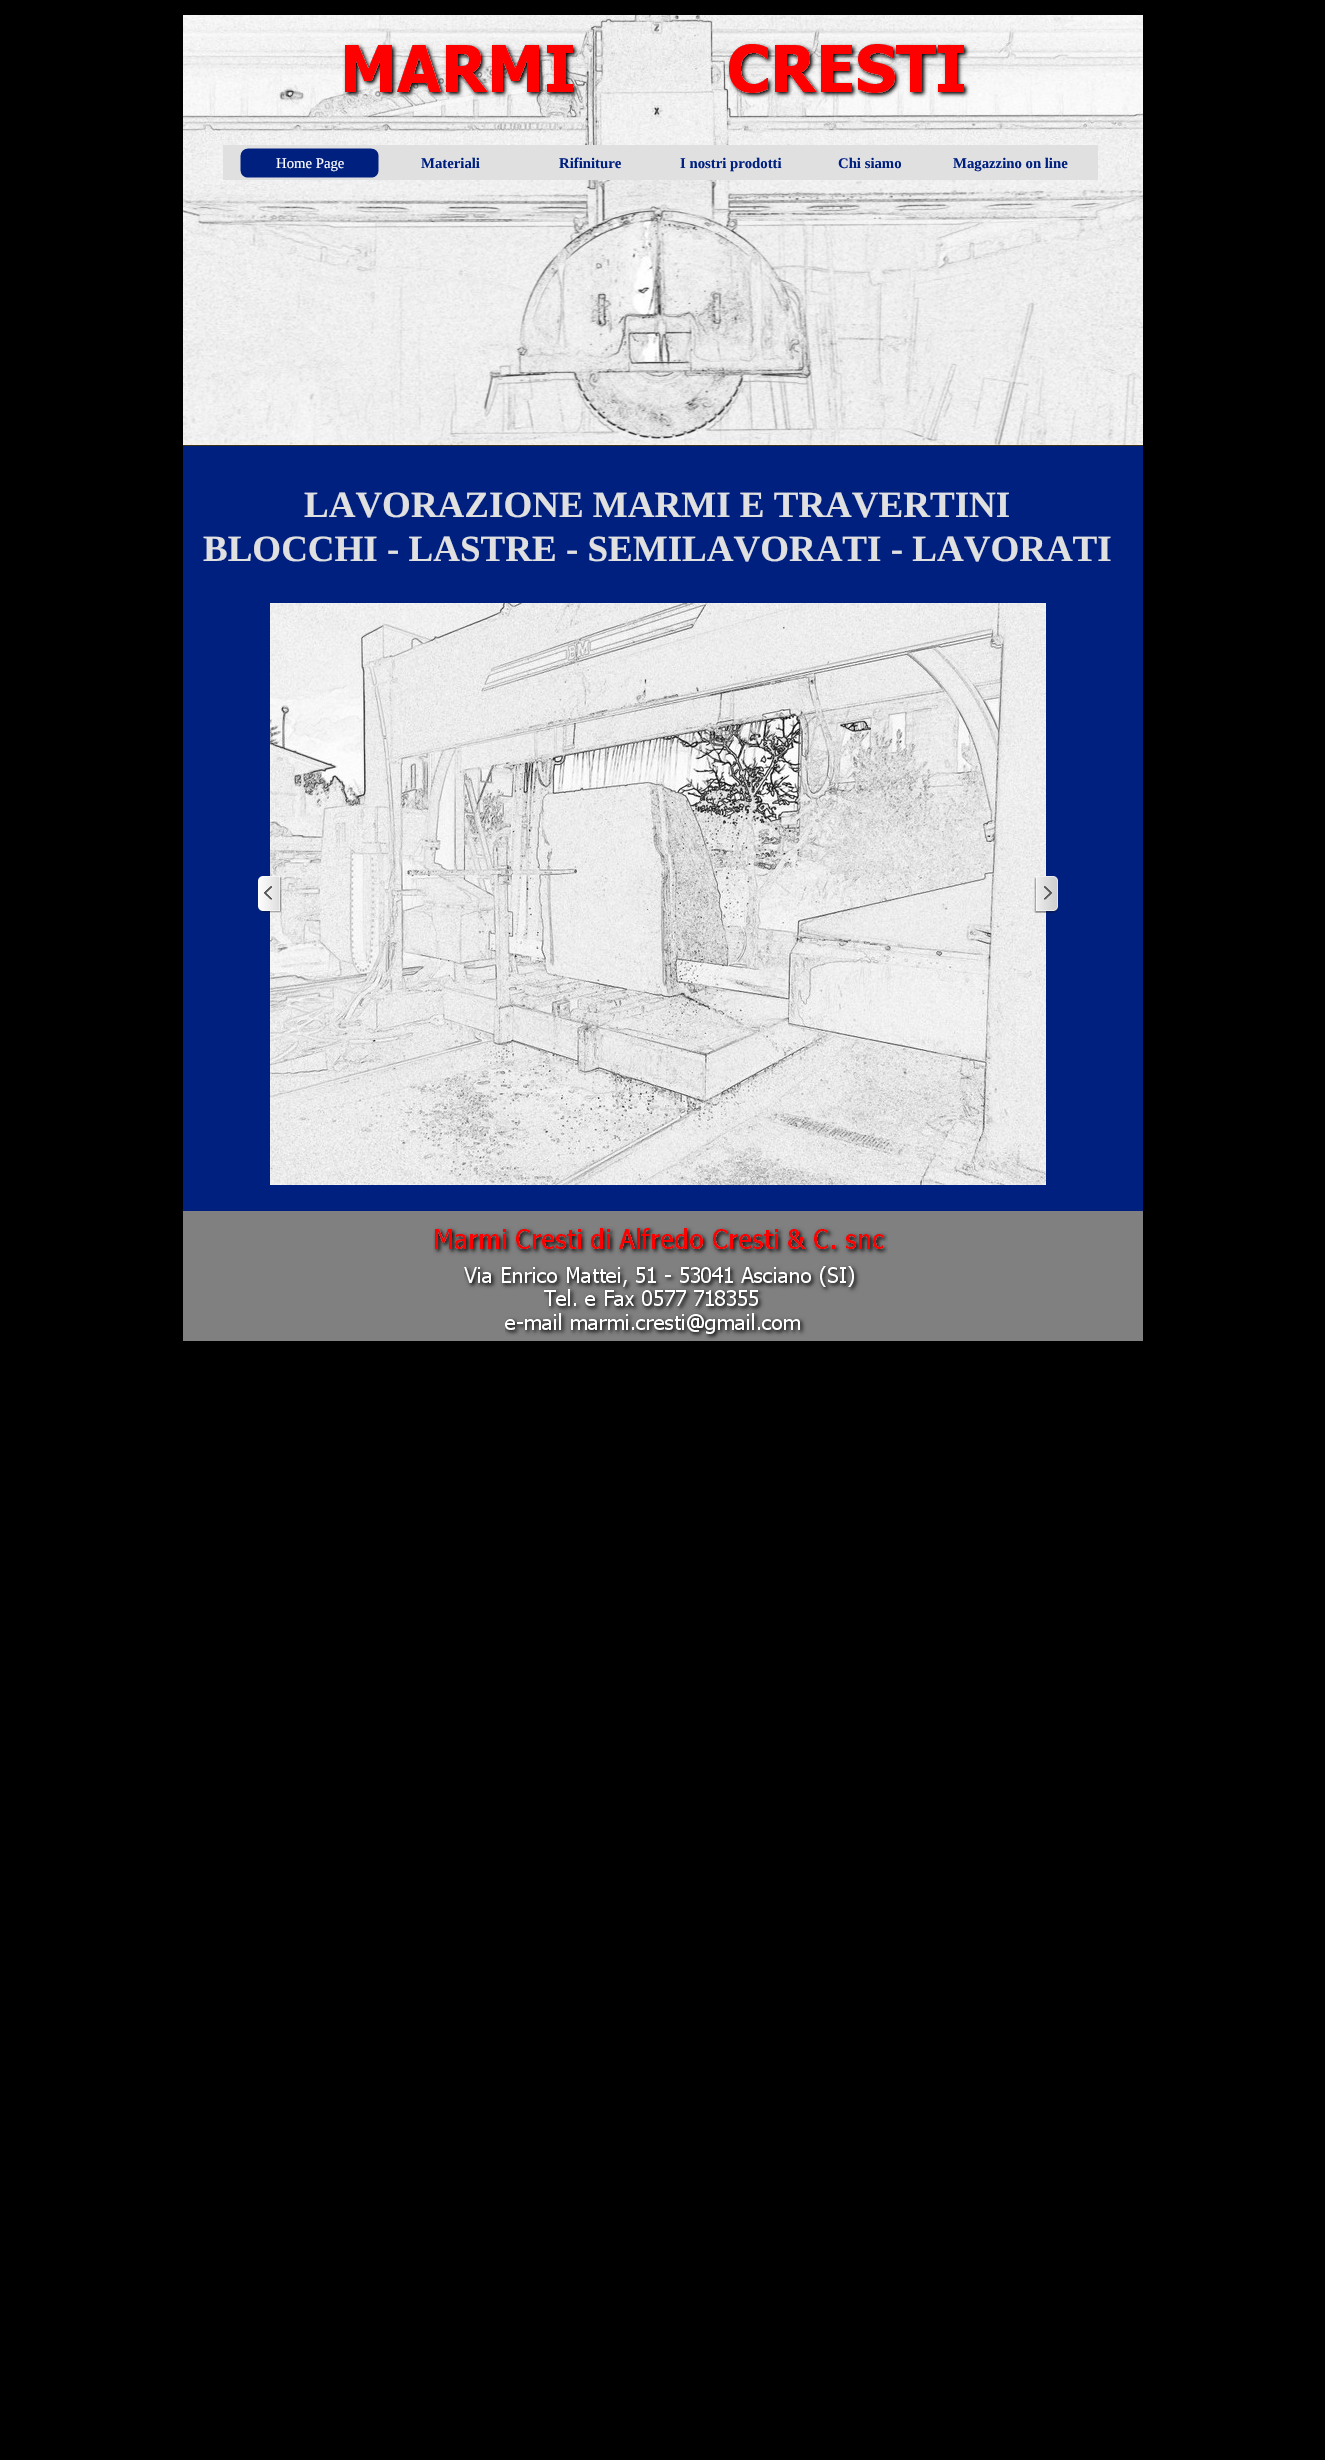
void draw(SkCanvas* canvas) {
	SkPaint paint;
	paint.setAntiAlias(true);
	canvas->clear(0xff000000);
	canvas->drawImageRect(SkImages::DeferredFromEncodedData(SkData::MakeFromFileName("img1.png")), SkRect::MakeXYWH(183, 15, 960, 150), SkSamplingOptions());
	canvas->drawImageRect(SkImages::DeferredFromEncodedData(SkData::MakeFromFileName("img3.png")), SkRect::MakeXYWH(183, 165, 960, 281), SkSamplingOptions());
	paint.setColor(0xffe0e0e0);
	canvas->drawRect(SkRect::MakeXYWH(223, 145, 875, 35), paint);
	canvas->drawImageRect(SkImages::DeferredFromEncodedData(SkData::MakeFromFileName("img2.png")), SkRect::MakeXYWH(240, 148, 139, 30), SkSamplingOptions());
	SkFont f1(fontMgr->matchFamilyStyle("Liberation Serif", SkFontStyle::Normal()), 14.75);
	f1.setSubpixel(true);
	paint.setColor(0xffffffff);
	canvas->drawString("Home Page", 276, 168, f1, paint);
	SkFont f2(fontMgr->matchFamilyStyle("Liberation Serif", SkFontStyle::Bold()), 14.75);
	f2.setSubpixel(true);
	paint.setColor(0xff002080);
	canvas->drawString("Materiali", 421, 168, f2, paint);
	canvas->drawString("Rifiniture", 559, 168, f2, paint);
	canvas->drawString("I nostri prodotti", 680, 168, f2, paint);
	canvas->drawString("Chi siamo", 838, 168, f2, paint);
	canvas->drawString("Magazzino on line", 953, 168, f2, paint);
	canvas->drawRect(SkRect::MakeXYWH(183, 446, 960, 765), paint);
	SkFont f3(fontMgr->matchFamilyStyle("Liberation Serif", SkFontStyle::Bold()), 37);
	f3.setSubpixel(true);
	paint.setColor(0xffe0e0e0);
	canvas->drawString("LAVORAZIONE MARMI E TRAVERTINI", 304, 517, f3, paint);
	canvas->drawString("BLOCCHI - LASTRE - SEMILAVORATI - LAVORATI", 203, 561, f3, paint);
	canvas->drawImageRect(SkImages::DeferredFromEncodedData(SkData::MakeFromFileName("img4.png")), SkRect::MakeXYWH(270, 603, 776, 582), SkSamplingOptions());
	canvas->drawImageRect(SkImages::DeferredFromEncodedData(SkData::MakeFromFileName("img5.png")), SkRect::MakeXYWH(258, 876, 24, 37), SkSamplingOptions());
	canvas->drawImageRect(SkImages::DeferredFromEncodedData(SkData::MakeFromFileName("img6.png")), SkRect::MakeXYWH(1034, 876, 24, 37), SkSamplingOptions());
	paint.setColor(0xff808080);
	canvas->drawRect(SkRect::MakeXYWH(183, 1211, 960, 130), paint);
	canvas->drawImageRect(SkImages::DeferredFromEncodedData(SkData::MakeFromFileName("img7.png")), SkRect::MakeXYWH(433, 1226, 455, 114), SkSamplingOptions());
}
